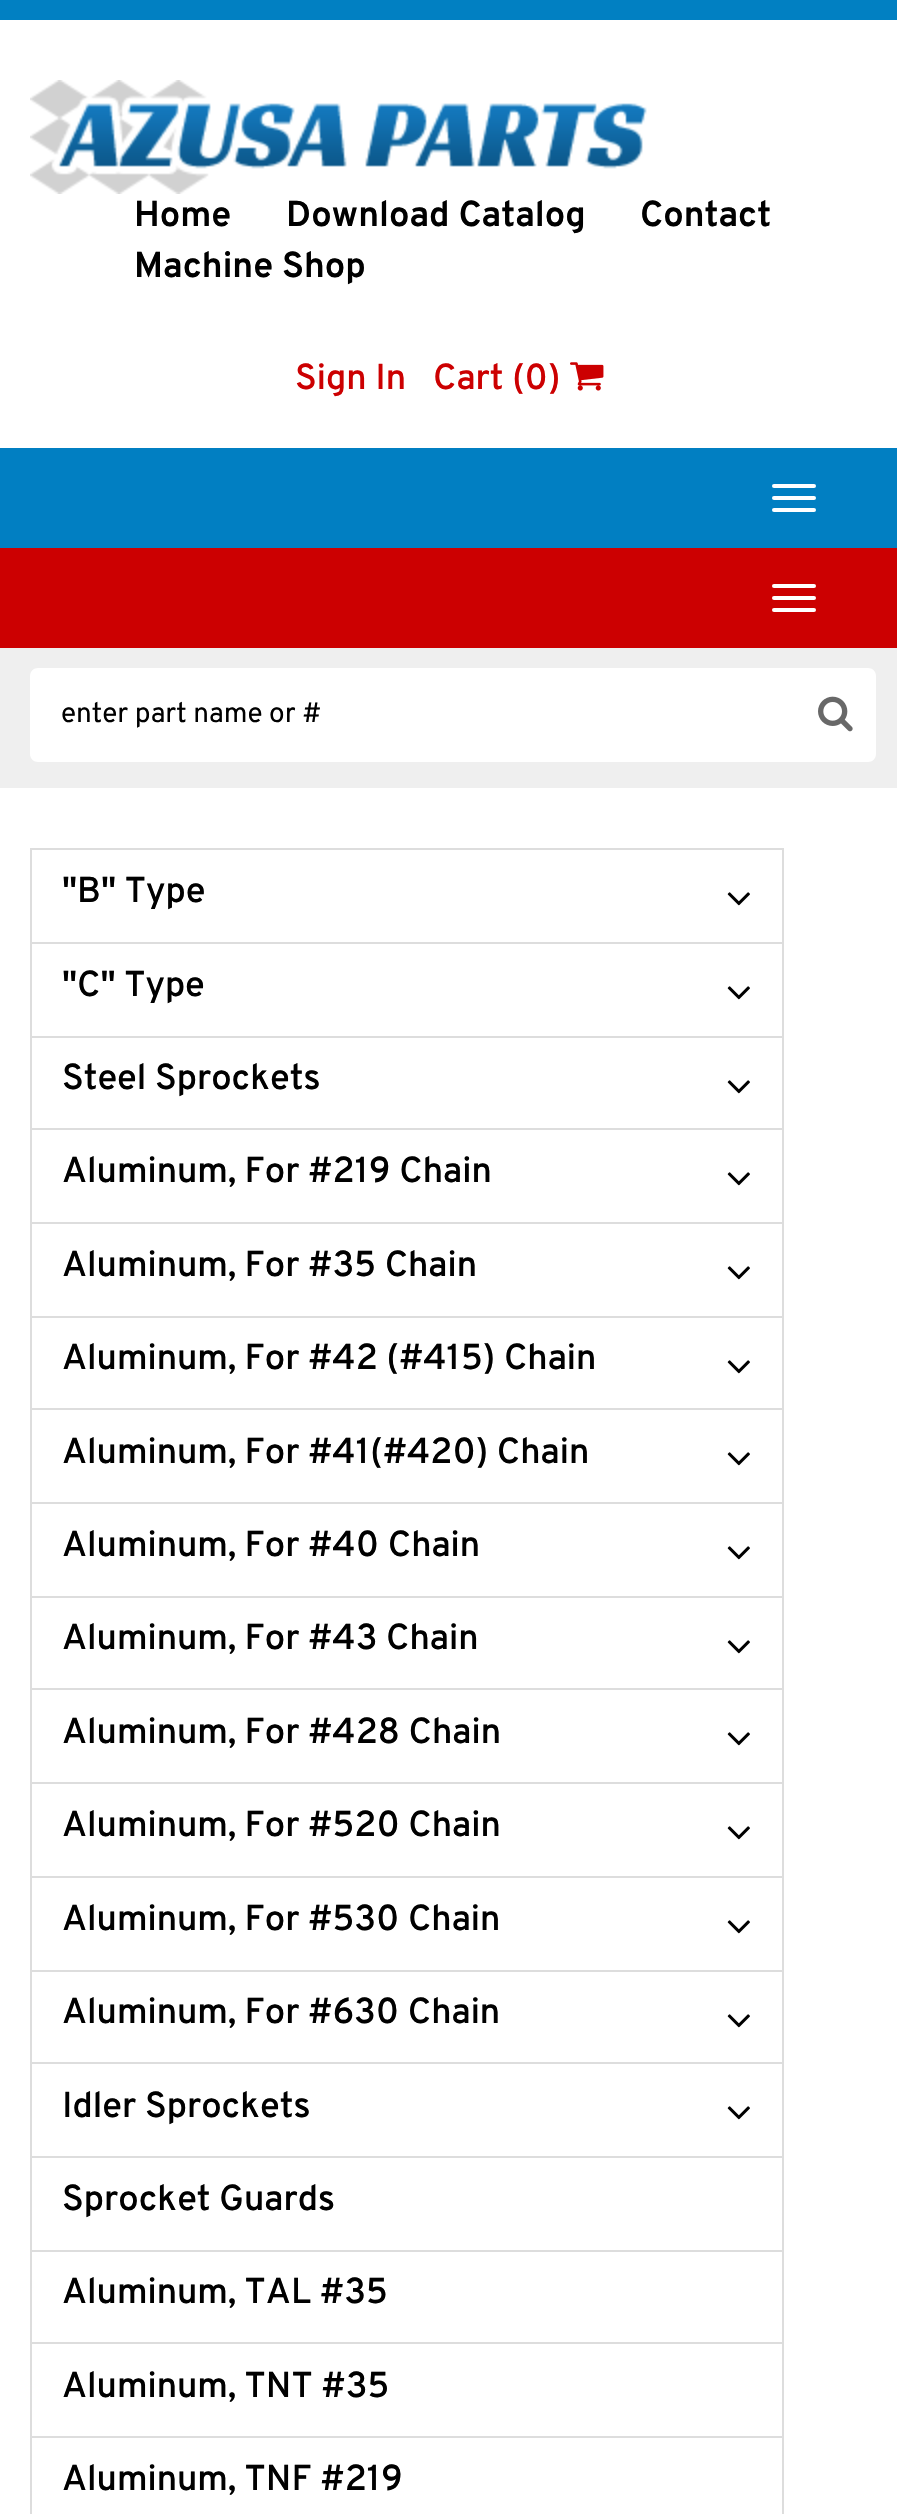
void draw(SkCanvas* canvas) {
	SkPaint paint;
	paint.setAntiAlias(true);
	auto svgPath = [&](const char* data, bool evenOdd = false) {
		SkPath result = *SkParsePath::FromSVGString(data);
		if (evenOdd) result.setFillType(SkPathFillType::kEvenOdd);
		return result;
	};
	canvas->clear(0xffffffff);
	paint.setColor(0xff0180c2);
	canvas->drawRect(SkRect::MakeXYWH(0, 0, 897, 20), paint);
	canvas->drawImageRect(SkImages::DeferredFromEncodedData(SkData::MakeFromFileName("img1.png")), SkRect::MakeXYWH(30, 80, 617, 114), SkSamplingOptions());
	SkFont f1(fontMgr->matchFamilyStyle("Overpass", SkFontStyle::Bold()), 36);
	f1.setSubpixel(true);
	paint.setColor(0xff000000);
	canvas->drawString("Home", 134, 226, f1, paint);
	canvas->drawString("Download Catalog", 286, 226, f1, paint);
	canvas->drawString("Contact", 640, 226, f1, paint);
	canvas->drawString("Machine Shop", 134, 277, f1, paint);
	SkFont f2(fontMgr->matchFamilyStyle("Overpass", SkFontStyle(600, SkFontStyle::kNormal_Width, SkFontStyle::kUpright_Slant)), 36);
	f2.setSubpixel(true);
	paint.setColor(0xffcc0001);
	canvas->drawString("Sign In", 295, 389, f2, paint);
	canvas->drawString("Cart (0)", 433, 389, f2, paint);
	canvas->drawImageRect(SkImages::DeferredFromEncodedData(SkData::MakeFromFileName("img2.png")), SkRect::MakeXYWH(570, 362, 34, 29), SkSamplingOptions());
	paint.setColor(0xff017fc2);
	canvas->drawRect(SkRect::MakeXYWH(0, 448, 897, 100), paint);
	paint.setColor(0xffffffff);
	canvas->drawRoundRect(SkRect::MakeXYWH(772, 484, 44, 4), 2, 2, paint);
	canvas->drawRoundRect(SkRect::MakeXYWH(772, 496, 44, 4), 2, 2, paint);
	canvas->drawRoundRect(SkRect::MakeXYWH(772, 508, 44, 4), 2, 2, paint);
	paint.setColor(0xffcc0001);
	canvas->drawRect(SkRect::MakeXYWH(0, 548, 897, 100), paint);
	paint.setColor(0xffffffff);
	canvas->drawRoundRect(SkRect::MakeXYWH(772, 584, 44, 4), 2, 2, paint);
	canvas->drawRoundRect(SkRect::MakeXYWH(772, 596, 44, 4), 2, 2, paint);
	canvas->drawRoundRect(SkRect::MakeXYWH(772, 608, 44, 4), 2, 2, paint);
	paint.setColor(0xffefefef);
	canvas->drawRect(SkRect::MakeXYWH(0, 648, 897, 140), paint);
	paint.setColor(0xffffffff);
	canvas->drawPath(svgPath("M38 668H796V762H38C33.5 762 30 758.5 30 754V676C30 671.5 33.5 668 38 668Z"), paint);
	SkFont f3(fontMgr->matchFamilyStyle("Overpass", SkFontStyle::Normal()), 28);
	f3.setSubpixel(true);
	paint.setColor(0xff000000);
	canvas->drawString("enter part name or #", 61, 722, f3, paint);
	paint.setColor(0xffffffff);
	canvas->drawPath(svgPath("M794 668H868C872.5 668 876 671.5 876 676V754C876 758.5 872.5 762 868 762H794Z"), paint);
	canvas->drawImageRect(SkImages::DeferredFromEncodedData(SkData::MakeFromFileName("img3.png")), SkRect::MakeXYWH(818, 696, 35, 36), SkSamplingOptions());
	paint.setColor(0xffdddddd);
	canvas->drawRect(SkRect::MakeXYWH(30, 848, 754, 2), paint);
	canvas->drawRect(SkRect::MakeXYWH(782, 848, 2, 94), paint);
	canvas->drawRect(SkRect::MakeXYWH(30, 848, 2, 94), paint);
	paint.setColor(0xff000000);
	canvas->drawString("\"B\" Type", 62, 902, f2, paint);
	canvas->drawImageRect(SkImages::DeferredFromEncodedData(SkData::MakeFromFileName("img4.png")), SkRect::MakeXYWH(727, 892, 23, 14), SkSamplingOptions());
	paint.setColor(0xffdddddd);
	canvas->drawRect(SkRect::MakeXYWH(30, 942, 754, 2), paint);
	canvas->drawRect(SkRect::MakeXYWH(782, 942, 2, 94), paint);
	canvas->drawRect(SkRect::MakeXYWH(30, 942, 2, 94), paint);
	paint.setColor(0xff000000);
	canvas->drawString("\"C\" Type", 62, 996, f2, paint);
	canvas->drawImageRect(SkImages::DeferredFromEncodedData(SkData::MakeFromFileName("img4.png")), SkRect::MakeXYWH(727, 986, 23, 14), SkSamplingOptions());
	paint.setColor(0xffdddddd);
	canvas->drawRect(SkRect::MakeXYWH(30, 1036, 754, 2), paint);
	canvas->drawRect(SkRect::MakeXYWH(782, 1036, 2, 92), paint);
	canvas->drawRect(SkRect::MakeXYWH(30, 1036, 2, 92), paint);
	paint.setColor(0xff000000);
	canvas->drawString("Steel Sprockets", 62, 1089, f2, paint);
	canvas->drawImageRect(SkImages::DeferredFromEncodedData(SkData::MakeFromFileName("img4.png")), SkRect::MakeXYWH(727, 1080, 23, 14), SkSamplingOptions());
	paint.setColor(0xffdddddd);
	canvas->drawRect(SkRect::MakeXYWH(30, 1128, 754, 2), paint);
	canvas->drawRect(SkRect::MakeXYWH(782, 1128, 2, 94), paint);
	canvas->drawRect(SkRect::MakeXYWH(30, 1128, 2, 94), paint);
	paint.setColor(0xff000000);
	canvas->drawString("Aluminum, For #219 Chain", 62, 1182, f2, paint);
	canvas->drawImageRect(SkImages::DeferredFromEncodedData(SkData::MakeFromFileName("img4.png")), SkRect::MakeXYWH(727, 1172, 23, 14), SkSamplingOptions());
	paint.setColor(0xffdddddd);
	canvas->drawRect(SkRect::MakeXYWH(30, 1222, 754, 2), paint);
	canvas->drawRect(SkRect::MakeXYWH(782, 1222, 2, 94), paint);
	canvas->drawRect(SkRect::MakeXYWH(30, 1222, 2, 94), paint);
	paint.setColor(0xff000000);
	canvas->drawString("Aluminum, For #35 Chain", 62, 1276, f2, paint);
	canvas->drawImageRect(SkImages::DeferredFromEncodedData(SkData::MakeFromFileName("img4.png")), SkRect::MakeXYWH(727, 1266, 23, 14), SkSamplingOptions());
	paint.setColor(0xffdddddd);
	canvas->drawRect(SkRect::MakeXYWH(30, 1316, 754, 2), paint);
	canvas->drawRect(SkRect::MakeXYWH(782, 1316, 2, 92), paint);
	canvas->drawRect(SkRect::MakeXYWH(30, 1316, 2, 92), paint);
	paint.setColor(0xff000000);
	canvas->drawString("Aluminum, For #42 (#415) Chain", 62, 1369, f2, paint);
	canvas->drawImageRect(SkImages::DeferredFromEncodedData(SkData::MakeFromFileName("img4.png")), SkRect::MakeXYWH(727, 1360, 23, 14), SkSamplingOptions());
	paint.setColor(0xffdddddd);
	canvas->drawRect(SkRect::MakeXYWH(30, 1408, 754, 2), paint);
	canvas->drawRect(SkRect::MakeXYWH(782, 1408, 2, 94), paint);
	canvas->drawRect(SkRect::MakeXYWH(30, 1408, 2, 94), paint);
	paint.setColor(0xff000000);
	canvas->drawString("Aluminum, For #41(#420) Chain", 62, 1463, f2, paint);
	canvas->drawImageRect(SkImages::DeferredFromEncodedData(SkData::MakeFromFileName("img4.png")), SkRect::MakeXYWH(727, 1452, 23, 14), SkSamplingOptions());
	paint.setColor(0xffdddddd);
	canvas->drawRect(SkRect::MakeXYWH(30, 1502, 754, 2), paint);
	canvas->drawRect(SkRect::MakeXYWH(782, 1502, 2, 94), paint);
	canvas->drawRect(SkRect::MakeXYWH(30, 1502, 2, 94), paint);
	paint.setColor(0xff000000);
	canvas->drawString("Aluminum, For #40 Chain", 62, 1556, f2, paint);
	canvas->drawImageRect(SkImages::DeferredFromEncodedData(SkData::MakeFromFileName("img4.png")), SkRect::MakeXYWH(727, 1546, 23, 14), SkSamplingOptions());
	paint.setColor(0xffdddddd);
	canvas->drawRect(SkRect::MakeXYWH(30, 1596, 754, 2), paint);
	canvas->drawRect(SkRect::MakeXYWH(782, 1596, 2, 92), paint);
	canvas->drawRect(SkRect::MakeXYWH(30, 1596, 2, 92), paint);
	paint.setColor(0xff000000);
	canvas->drawString("Aluminum, For #43 Chain", 62, 1649, f2, paint);
	canvas->drawImageRect(SkImages::DeferredFromEncodedData(SkData::MakeFromFileName("img4.png")), SkRect::MakeXYWH(727, 1640, 23, 14), SkSamplingOptions());
	paint.setColor(0xffdddddd);
	canvas->drawRect(SkRect::MakeXYWH(30, 1688, 754, 2), paint);
	canvas->drawRect(SkRect::MakeXYWH(782, 1688, 2, 94), paint);
	canvas->drawRect(SkRect::MakeXYWH(30, 1688, 2, 94), paint);
	paint.setColor(0xff000000);
	canvas->drawString("Aluminum, For #428 Chain", 62, 1743, f2, paint);
	canvas->drawImageRect(SkImages::DeferredFromEncodedData(SkData::MakeFromFileName("img4.png")), SkRect::MakeXYWH(727, 1732, 23, 14), SkSamplingOptions());
	paint.setColor(0xffdddddd);
	canvas->drawRect(SkRect::MakeXYWH(30, 1782, 754, 2), paint);
	canvas->drawRect(SkRect::MakeXYWH(782, 1782, 2, 94), paint);
	canvas->drawRect(SkRect::MakeXYWH(30, 1782, 2, 94), paint);
	paint.setColor(0xff000000);
	canvas->drawString("Aluminum, For #520 Chain", 62, 1836, f2, paint);
	canvas->drawImageRect(SkImages::DeferredFromEncodedData(SkData::MakeFromFileName("img4.png")), SkRect::MakeXYWH(727, 1826, 23, 14), SkSamplingOptions());
	paint.setColor(0xffdddddd);
	canvas->drawRect(SkRect::MakeXYWH(30, 1876, 754, 2), paint);
	canvas->drawRect(SkRect::MakeXYWH(782, 1876, 2, 94), paint);
	canvas->drawRect(SkRect::MakeXYWH(30, 1876, 2, 94), paint);
	paint.setColor(0xff000000);
	canvas->drawString("Aluminum, For #530 Chain", 62, 1930, f2, paint);
	canvas->drawImageRect(SkImages::DeferredFromEncodedData(SkData::MakeFromFileName("img4.png")), SkRect::MakeXYWH(727, 1920, 23, 14), SkSamplingOptions());
	paint.setColor(0xffdddddd);
	canvas->drawRect(SkRect::MakeXYWH(30, 1970, 754, 2), paint);
	canvas->drawRect(SkRect::MakeXYWH(782, 1970, 2, 92), paint);
	canvas->drawRect(SkRect::MakeXYWH(30, 1970, 2, 92), paint);
	paint.setColor(0xff000000);
	canvas->drawString("Aluminum, For #630 Chain", 62, 2023, f2, paint);
	canvas->drawImageRect(SkImages::DeferredFromEncodedData(SkData::MakeFromFileName("img4.png")), SkRect::MakeXYWH(727, 2014, 23, 14), SkSamplingOptions());
	paint.setColor(0xffdddddd);
	canvas->drawRect(SkRect::MakeXYWH(30, 2062, 754, 2), paint);
	canvas->drawRect(SkRect::MakeXYWH(782, 2062, 2, 94), paint);
	canvas->drawRect(SkRect::MakeXYWH(30, 2062, 2, 94), paint);
	paint.setColor(0xff000000);
	canvas->drawString("Idler Sprockets", 62, 2117, f2, paint);
	canvas->drawImageRect(SkImages::DeferredFromEncodedData(SkData::MakeFromFileName("img4.png")), SkRect::MakeXYWH(727, 2106, 23, 14), SkSamplingOptions());
	paint.setColor(0xffdddddd);
	canvas->drawRect(SkRect::MakeXYWH(30, 2156, 754, 2), paint);
	canvas->drawRect(SkRect::MakeXYWH(782, 2156, 2, 94), paint);
	canvas->drawRect(SkRect::MakeXYWH(30, 2156, 2, 94), paint);
	paint.setColor(0xff000000);
	canvas->drawString("Sprocket Guards", 62, 2210, f2, paint);
	paint.setColor(0xffdddddd);
	canvas->drawRect(SkRect::MakeXYWH(30, 2250, 754, 2), paint);
	canvas->drawRect(SkRect::MakeXYWH(782, 2250, 2, 92), paint);
	canvas->drawRect(SkRect::MakeXYWH(30, 2250, 2, 92), paint);
	paint.setColor(0xff000000);
	canvas->drawString("Aluminum, TAL #35", 62, 2303, f2, paint);
	paint.setColor(0xffdddddd);
	canvas->drawRect(SkRect::MakeXYWH(30, 2342, 754, 2), paint);
	canvas->drawRect(SkRect::MakeXYWH(782, 2342, 2, 94), paint);
	canvas->drawRect(SkRect::MakeXYWH(30, 2342, 2, 94), paint);
	paint.setColor(0xff000000);
	canvas->drawString("Aluminum, TNT #35", 62, 2397, f2, paint);
	paint.setColor(0xffdddddd);
	canvas->drawRect(SkRect::MakeXYWH(30, 2436, 754, 2), paint);
	canvas->drawRect(SkRect::MakeXYWH(782, 2436, 2, 78), paint);
	canvas->drawRect(SkRect::MakeXYWH(30, 2436, 2, 78), paint);
	paint.setColor(0xff000000);
	canvas->drawString("Aluminum, TNF #219", 62, 2490, f2, paint);
}
